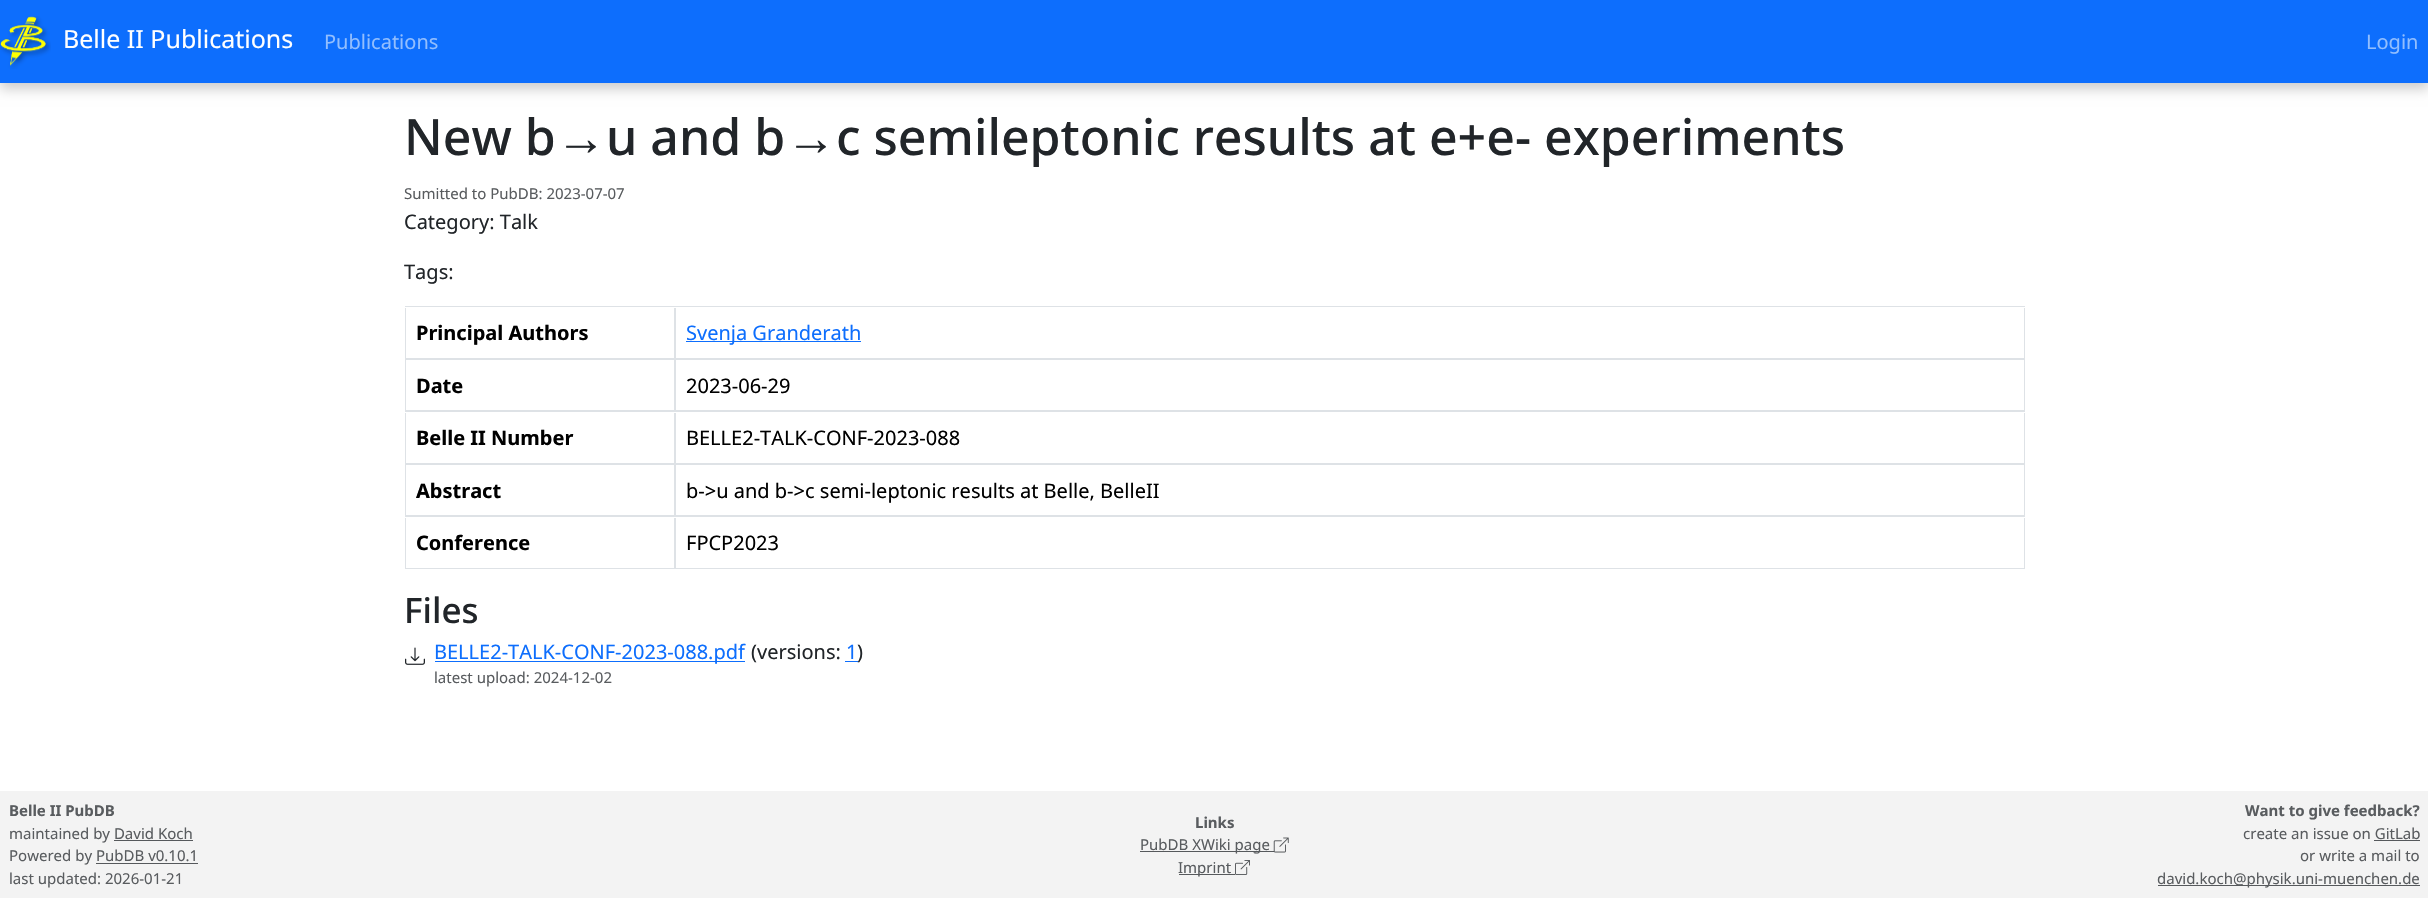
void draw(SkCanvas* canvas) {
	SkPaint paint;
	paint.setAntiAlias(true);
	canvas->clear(0xffffffff);
	paint.setColor(0x33010101);
	paint.setMaskFilter(SkMaskFilter::MakeBlur(kNormal_SkBlurStyle, 6));
	canvas->drawRect(SkRect::MakeXYWH(0, 6, 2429, 83), paint);
	paint.setMaskFilter(nullptr);
	paint.setColor(0xff0d6efd);
	canvas->drawRect(SkRect::MakeXYWH(0, 0, 2428, 83), paint);
	canvas->drawImageRect(SkImages::DeferredFromEncodedData(SkData::MakeFromFileName("img1.png")), SkRect::MakeXYWH(0, 16, 51, 53), SkSamplingOptions());
	SkFont f1(fontMgr->matchFamilyStyle("Noto Sans", SkFontStyle::Normal()), 25);
	f1.setSubpixel(true);
	paint.setColor(0xffffffff);
	canvas->drawString("Belle II Publications", 63, 48, f1, paint);
	SkFont f2(fontMgr->matchFamilyStyle("Noto Sans", SkFontStyle::Normal()), 20);
	f2.setSubpixel(true);
	paint.setColor(0xff92befe);
	canvas->drawString("Publications", 324, 49, f2, paint);
	canvas->drawString("Login", 2366, 49, f2, paint);
	SkFont f3(fontMgr->matchFamilyStyle("Noto Sans", SkFontStyle(500, SkFontStyle::kNormal_Width, SkFontStyle::kUpright_Slant)), 50);
	f3.setSubpixel(true);
	paint.setColor(0xff212529);
	canvas->drawString("New b", 404, 155, f3, paint);
	SkFont f4(fontMgr->matchFamilyStyle("Liberation Sans", SkFontStyle::Normal()), 50);
	f4.setSubpixel(true);
	canvas->drawString("→", 556, 155, f4, paint);
	canvas->drawString("u and b", 606, 155, f3, paint);
	canvas->drawString("→", 786, 155, f4, paint);
	canvas->drawString("c semileptonic results at e+e- experiments", 836, 155, f3, paint);
	SkFont f5(fontMgr->matchFamilyStyle("Noto Sans", SkFontStyle::Normal()), 15);
	f5.setSubpixel(true);
	paint.setColor(0xff595c5f);
	canvas->drawString("Sumitted to PubDB: 2023-07-07", 404, 199, f5, paint);
	paint.setColor(0xff212529);
	canvas->drawString("Category: Talk", 404, 229, f2, paint);
	canvas->drawString("Tags:", 404, 279, f2, paint);
	paint.setColor(0xffdee2e6);
	canvas->drawRect(SkRect::MakeXYWH(405, 306, 1620, 1), paint);
	canvas->drawRect(SkRect::MakeXYWH(405, 358, 1620, 2), paint);
	canvas->drawRect(SkRect::MakeXYWH(674, 308, 2, 50), paint);
	canvas->drawRect(SkRect::MakeXYWH(405, 308, 1, 50), paint);
	SkFont f6(fontMgr->matchFamilyStyle("Noto Sans", SkFontStyle::Bold()), 20);
	f6.setSubpixel(true);
	paint.setColor(0xff000000);
	canvas->drawString("Principal Authors", 416, 340, f6, paint);
	paint.setColor(0xffdee2e6);
	canvas->drawRect(SkRect::MakeXYWH(2024, 308, 1, 50), paint);
	paint.setColor(0xff0d6efd);
	canvas->drawRect(SkRect::MakeXYWH(686, 341, 175, 1), paint);
	canvas->drawString("Svenja Granderath", 686, 340, f2, paint);
	paint.setColor(0xffdee2e6);
	canvas->drawRect(SkRect::MakeXYWH(405, 410, 1620, 2), paint);
	canvas->drawRect(SkRect::MakeXYWH(674, 360, 2, 50), paint);
	canvas->drawRect(SkRect::MakeXYWH(405, 360, 1, 50), paint);
	paint.setColor(0xff000000);
	canvas->drawString("Date", 416, 393, f6, paint);
	paint.setColor(0xffdee2e6);
	canvas->drawRect(SkRect::MakeXYWH(2024, 360, 1, 50), paint);
	paint.setColor(0xff000000);
	canvas->drawString("2023-06-29", 686, 393, f2, paint);
	paint.setColor(0xffdee2e6);
	canvas->drawRect(SkRect::MakeXYWH(405, 463, 1620, 2), paint);
	canvas->drawRect(SkRect::MakeXYWH(674, 413, 2, 50), paint);
	canvas->drawRect(SkRect::MakeXYWH(405, 413, 1, 50), paint);
	paint.setColor(0xff000000);
	canvas->drawString("Belle II Number", 416, 445, f6, paint);
	paint.setColor(0xffdee2e6);
	canvas->drawRect(SkRect::MakeXYWH(2024, 413, 1, 50), paint);
	paint.setColor(0xff000000);
	canvas->drawString("BELLE2-TALK-CONF-2023-088", 686, 445, f2, paint);
	paint.setColor(0xffdee2e6);
	canvas->drawRect(SkRect::MakeXYWH(405, 515, 1620, 2), paint);
	canvas->drawRect(SkRect::MakeXYWH(674, 465, 2, 50), paint);
	canvas->drawRect(SkRect::MakeXYWH(405, 465, 1, 50), paint);
	paint.setColor(0xff000000);
	canvas->drawString("Abstract", 416, 498, f6, paint);
	paint.setColor(0xffdee2e6);
	canvas->drawRect(SkRect::MakeXYWH(2024, 465, 1, 50), paint);
	paint.setColor(0xff000000);
	canvas->drawString("b->u and b->c semi-leptonic results at Belle, BelleII", 686, 498, f2, paint);
	paint.setColor(0xffdee2e6);
	canvas->drawRect(SkRect::MakeXYWH(405, 568, 1620, 1), paint);
	canvas->drawRect(SkRect::MakeXYWH(674, 518, 2, 50), paint);
	canvas->drawRect(SkRect::MakeXYWH(405, 518, 1, 50), paint);
	paint.setColor(0xff000000);
	canvas->drawString("Conference", 416, 550, f6, paint);
	paint.setColor(0xffdee2e6);
	canvas->drawRect(SkRect::MakeXYWH(2024, 518, 1, 50), paint);
	paint.setColor(0xff000000);
	canvas->drawString("FPCP2023", 686, 550, f2, paint);
	SkFont f7(fontMgr->matchFamilyStyle("Noto Sans", SkFontStyle(500, SkFontStyle::kNormal_Width, SkFontStyle::kUpright_Slant)), 35);
	f7.setSubpixel(true);
	paint.setColor(0xff212529);
	canvas->drawString("Files", 404, 623, f7, paint);
	canvas->drawImageRect(SkImages::DeferredFromEncodedData(SkData::MakeFromFileName("img2.png")), SkRect::MakeXYWH(405, 647, 20, 18), SkSamplingOptions());
	paint.setColor(0xff0d6efd);
	canvas->drawRect(SkRect::MakeXYWH(435, 661, 310, 1), paint);
	canvas->drawString("BELLE2-TALK-CONF-2023-088.pdf", 434, 659, f2, paint);
	paint.setColor(0xff212529);
	canvas->drawString("(versions:", 751, 659, f2, paint);
	paint.setColor(0xff0d6efd);
	canvas->drawString("1", 846, 659, f2, paint);
	canvas->drawRect(SkRect::MakeXYWH(845, 661, 13, 1), paint);
	paint.setColor(0xff212529);
	canvas->drawString(")", 857, 659, f2, paint);
	paint.setColor(0xff595c5f);
	canvas->drawString("latest upload: 2024-12-02", 434, 683, f5, paint);
	paint.setColor(0xfff3f3f3);
	canvas->drawRect(SkRect::MakeXYWH(0, 791, 2428, 107), paint);
	SkFont f8(fontMgr->matchFamilyStyle("Noto Sans", SkFontStyle::Bold()), 15);
	f8.setSubpixel(true);
	paint.setColor(0xff595c5f);
	canvas->drawString("Belle II PubDB", 9, 816, f8, paint);
	canvas->drawString("maintained by David Koch", 9, 839, f5, paint);
	paint.setColor(0xff56595c);
	canvas->drawRect(SkRect::MakeXYWH(114, 840, 79, 1), paint);
	paint.setColor(0xff595c5f);
	canvas->drawString("Powered by PubDB v0.10.1", 9, 861, f5, paint);
	paint.setColor(0xff56595c);
	canvas->drawRect(SkRect::MakeXYWH(96, 863, 102, 1), paint);
	paint.setColor(0xff595c5f);
	canvas->drawString("last updated: 2026-01-21", 9, 884, f5, paint);
	canvas->drawString("Links", 1195, 828, f8, paint);
	paint.setColor(0xff56595c);
	canvas->drawRect(SkRect::MakeXYWH(1140, 851, 134, 1), paint);
	paint.setColor(0xff595c5f);
	canvas->drawString("PubDB XWiki page", 1140, 850, f5, paint);
	canvas->drawImageRect(SkImages::DeferredFromEncodedData(SkData::MakeFromFileName("img3.png")), SkRect::MakeXYWH(1273, 837, 16, 16), SkSamplingOptions());
	paint.setColor(0xff56595c);
	canvas->drawRect(SkRect::MakeXYWH(1179, 874, 56, 1), paint);
	paint.setColor(0xff595c5f);
	canvas->drawString("Imprint", 1178, 873, f5, paint);
	canvas->drawImageRect(SkImages::DeferredFromEncodedData(SkData::MakeFromFileName("img4.png")), SkRect::MakeXYWH(1235, 860, 15, 15), SkSamplingOptions());
	canvas->drawString("Want to give feedback?", 2245, 816, f8, paint);
	canvas->drawString("create an issue on GitLab", 2243, 839, f5, paint);
	paint.setColor(0xff56595c);
	canvas->drawRect(SkRect::MakeXYWH(2374, 840, 46, 1), paint);
	paint.setColor(0xff595c5f);
	canvas->drawString("or write a mail to", 2300, 861, f5, paint);
	paint.setColor(0xff56595c);
	canvas->drawRect(SkRect::MakeXYWH(2158, 885, 262, 1), paint);
	paint.setColor(0xff595c5f);
	canvas->drawString("david.koch@physik.uni-muenchen.de", 2157, 884, f5, paint);
}
